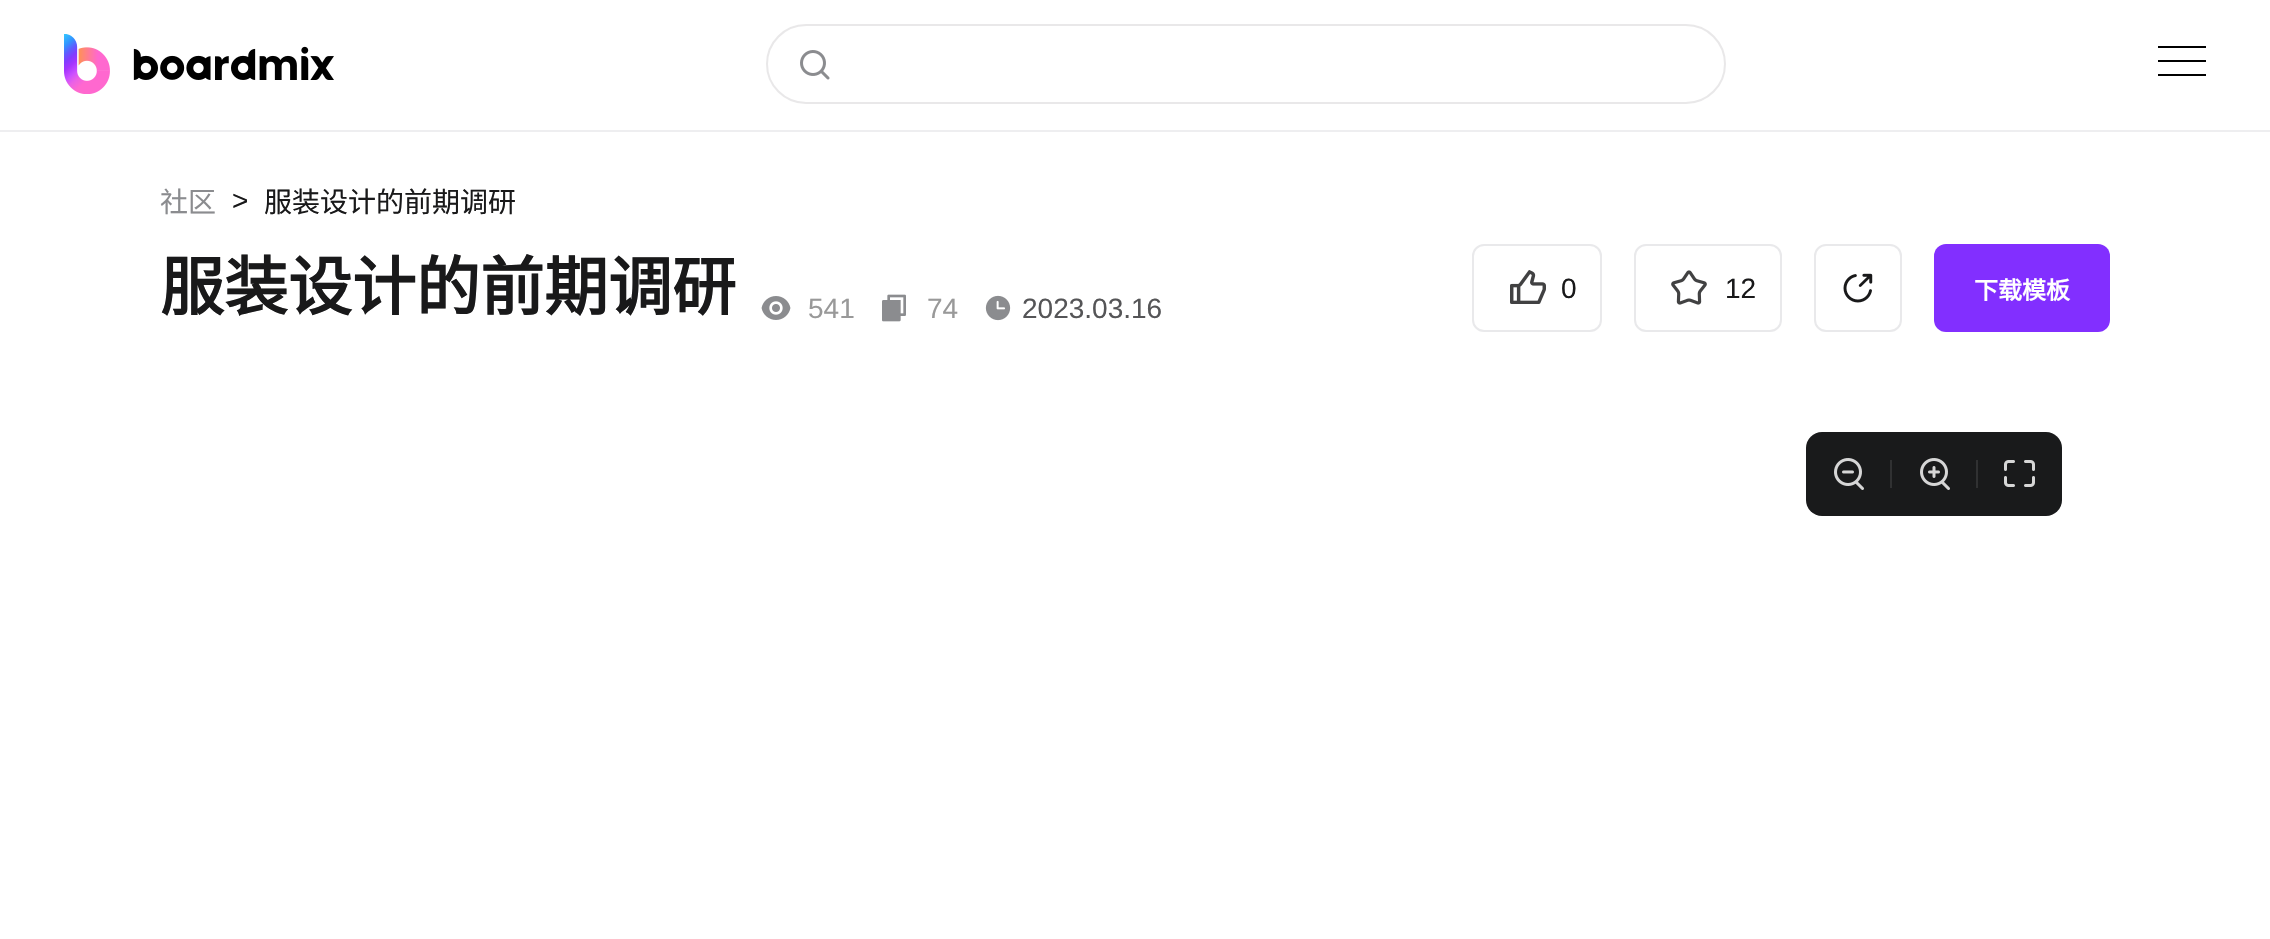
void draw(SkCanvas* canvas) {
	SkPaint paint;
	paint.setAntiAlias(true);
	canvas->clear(0xffffffff);
	paint.setColor(0xffeeeef0);
	canvas->drawRect(SkRect::MakeXYWH(0, 130, 2270, 2), paint);
	canvas->drawImageRect(SkImages::DeferredFromEncodedData(SkData::MakeFromFileName("img1.png")), SkRect::MakeXYWH(64, 34, 270, 60), SkSamplingOptions());
	paint.setStroke(true);
	paint.setStrokeWidth(2);
	paint.setColor(0xffe9e8e9);
	canvas->drawRoundRect(SkRect::MakeXYWH(767, 25, 958, 78), 39, 39, paint);
	canvas->drawImageRect(SkImages::DeferredFromEncodedData(SkData::MakeFromFileName("img2.png")), SkRect::MakeXYWH(800, 50, 30, 30), SkSamplingOptions());
	paint.setStroke(false);
	paint.setColor(0xff000000);
	canvas->drawRect(SkRect::MakeXYWH(2158, 46, 48, 2), paint);
	canvas->drawRect(SkRect::MakeXYWH(2158, 60, 48, 2), paint);
	canvas->drawRect(SkRect::MakeXYWH(2158, 74, 48, 2), paint);
	SkFont f1(fontMgr->matchFamilyStyle("Noto Sans CJK SC", SkFontStyle::Normal()), 28);
	f1.setSubpixel(true);
	paint.setColor(0xff8b8c8f);
	canvas->drawString("社区", 160, 212, f1, paint);
	SkFont f2(fontMgr->matchFamilyStyle("Liberation Sans", SkFontStyle::Normal()), 28);
	f2.setSubpixel(true);
	paint.setColor(0xff19191a);
	canvas->drawString(">", 232, 210, f2, paint);
	canvas->drawString("服装设计的前期调研", 264, 212, f1, paint);
	SkFont f3(fontMgr->matchFamilyStyle("Noto Sans CJK SC", SkFontStyle::Bold()), 64);
	f3.setSubpixel(true);
	canvas->drawString("服装设计的前期调研", 160, 310, f3, paint);
	canvas->drawImageRect(SkImages::DeferredFromEncodedData(SkData::MakeFromFileName("img3.png")), SkRect::MakeXYWH(761, 296, 30, 24), SkSamplingOptions());
	paint.setColor(0xff999999);
	canvas->drawString("541", 808, 318, f2, paint);
	canvas->drawImageRect(SkImages::DeferredFromEncodedData(SkData::MakeFromFileName("img4.png")), SkRect::MakeXYWH(882, 294, 24, 28), SkSamplingOptions());
	canvas->drawString("74", 927, 318, f2, paint);
	canvas->drawImageRect(SkImages::DeferredFromEncodedData(SkData::MakeFromFileName("img5.png")), SkRect::MakeXYWH(985, 295, 26, 26), SkSamplingOptions());
	paint.setColor(0xff555557);
	canvas->drawString("2023.03.16", 1022, 318, f2, paint);
	paint.setStroke(true);
	paint.setColor(0xffe9e9eb);
	canvas->drawRoundRect(SkRect::MakeXYWH(1473, 245, 128, 86), 11, 11, paint);
	canvas->drawImageRect(SkImages::DeferredFromEncodedData(SkData::MakeFromFileName("img6.png")), SkRect::MakeXYWH(1510, 270, 36, 34), SkSamplingOptions());
	paint.setStroke(false);
	paint.setColor(0xff19191a);
	canvas->drawString("0", 1561, 298, f2, paint);
	paint.setStroke(true);
	paint.setColor(0xffe9e9eb);
	canvas->drawRoundRect(SkRect::MakeXYWH(1635, 245, 146, 86), 11, 11, paint);
	canvas->drawImageRect(SkImages::DeferredFromEncodedData(SkData::MakeFromFileName("img7.png")), SkRect::MakeXYWH(1671, 270, 36, 35), SkSamplingOptions());
	paint.setStroke(false);
	paint.setColor(0xff19191a);
	canvas->drawString("12", 1725, 298, f2, paint);
	paint.setStroke(true);
	paint.setColor(0xffe9e9eb);
	canvas->drawRoundRect(SkRect::MakeXYWH(1815, 245, 86, 86), 11, 11, paint);
	canvas->drawImageRect(SkImages::DeferredFromEncodedData(SkData::MakeFromFileName("img8.png")), SkRect::MakeXYWH(1843, 273, 30, 30), SkSamplingOptions());
	paint.setStroke(false);
	paint.setColor(0xff822fff);
	canvas->drawRoundRect(SkRect::MakeXYWH(1934, 244, 176, 88), 12, 12, paint);
	SkFont f4(fontMgr->matchFamilyStyle("Noto Sans CJK SC", SkFontStyle::Bold()), 24);
	f4.setSubpixel(true);
	paint.setColor(0xffffffff);
	canvas->drawString("下载模板", 1974, 299, f4, paint);
	paint.setColor(0xff191a1b);
	canvas->drawRoundRect(SkRect::MakeXYWH(1806, 432, 256, 84), 16, 16, paint);
	canvas->drawImageRect(SkImages::DeferredFromEncodedData(SkData::MakeFromFileName("img9.png")), SkRect::MakeXYWH(1834, 458, 30, 32), SkSamplingOptions());
	paint.setColor(0xff303132);
	canvas->drawRect(SkRect::MakeXYWH(1890, 460, 2, 28), paint);
	canvas->drawImageRect(SkImages::DeferredFromEncodedData(SkData::MakeFromFileName("img10.png")), SkRect::MakeXYWH(1920, 458, 30, 32), SkSamplingOptions());
	canvas->drawRect(SkRect::MakeXYWH(1976, 460, 2, 28), paint);
	canvas->drawImageRect(SkImages::DeferredFromEncodedData(SkData::MakeFromFileName("img11.png")), SkRect::MakeXYWH(2004, 460, 31, 27), SkSamplingOptions());
}
